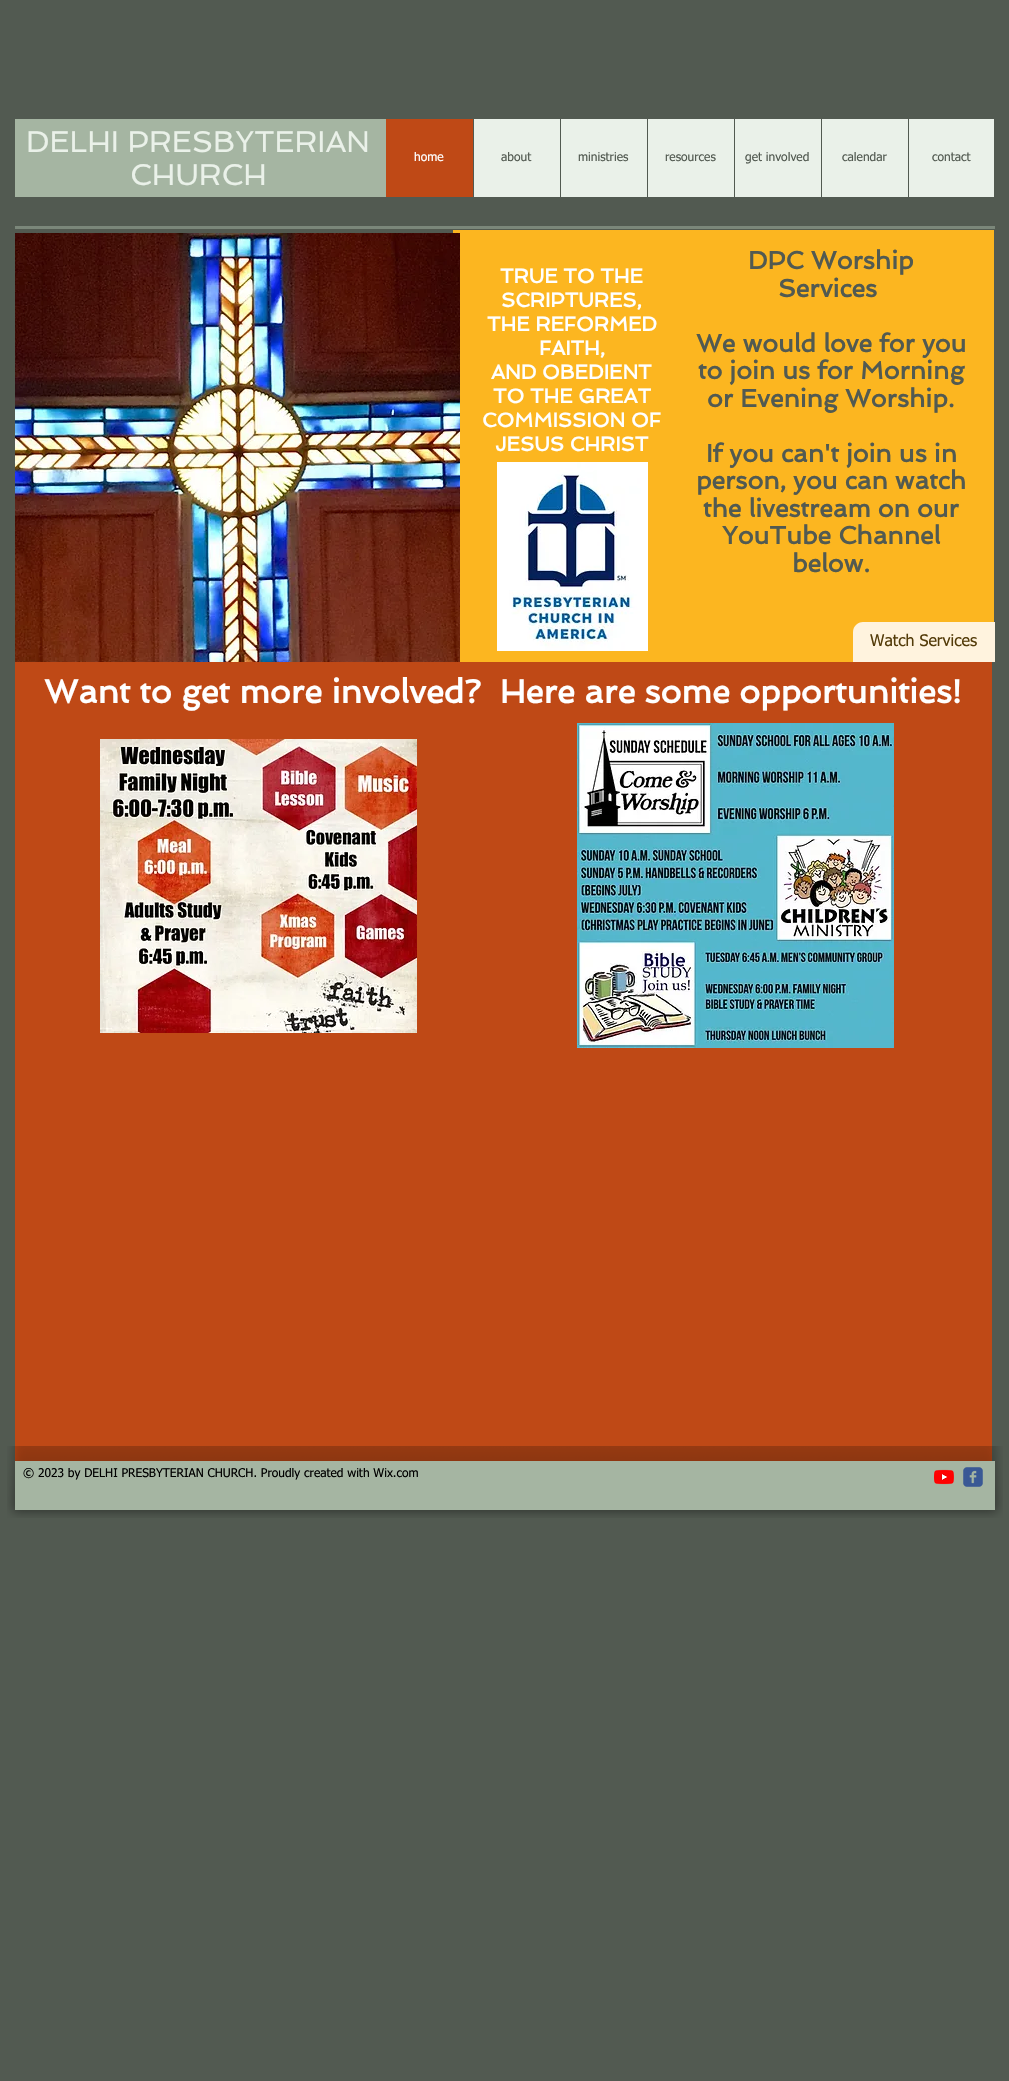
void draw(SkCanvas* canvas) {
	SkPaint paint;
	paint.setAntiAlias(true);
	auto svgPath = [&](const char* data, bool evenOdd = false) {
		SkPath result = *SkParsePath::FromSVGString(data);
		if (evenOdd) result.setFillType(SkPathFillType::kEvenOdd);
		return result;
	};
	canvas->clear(0xff525a51);
	paint.setColor(0xffa5b5a2);
	canvas->drawRect(SkRect::MakeXYWH(15, 119, 371, 78), paint);
	SkFont f1(fontMgr->matchFamilyStyle("Spinnaker", SkFontStyle::Normal()), 30);
	f1.setSubpixel(true);
	paint.setColor(0xffeaf1e9);
	canvas->drawString("DELHI PRESBYTERIAN", 26, 152, f1, paint);
	canvas->drawString("CHURCH", 130, 185, f1, paint);
	canvas->drawRect(SkRect::MakeXYWH(474, 119, 520, 78), paint);
	paint.setColor(0xffbf4916);
	canvas->drawRect(SkRect::MakeXYWH(386, 119, 87, 78), paint);
	SkFont f2(fontMgr->matchFamilyStyle("tahoma", SkFontStyle::Normal()), 12);
	f2.setSubpixel(true);
	paint.setColor(0xffffffff);
	canvas->drawString("home", 414, 161, f2, paint);
	paint.setColor(0xff525a51);
	canvas->drawString("about", 501, 161, f2, paint);
	canvas->drawRect(SkRect::MakeXYWH(560, 119, 1, 78), paint);
	canvas->drawString("ministries", 578, 161, f2, paint);
	canvas->drawRect(SkRect::MakeXYWH(647, 119, 1, 78), paint);
	canvas->drawString("resources", 665, 161, f2, paint);
	canvas->drawRect(SkRect::MakeXYWH(734, 119, 1, 78), paint);
	canvas->drawString("get involved", 745, 161, f2, paint);
	canvas->drawRect(SkRect::MakeXYWH(821, 119, 1, 78), paint);
	canvas->drawString("calendar", 842, 161, f2, paint);
	canvas->drawRect(SkRect::MakeXYWH(908, 119, 1, 78), paint);
	canvas->drawString("contact", 932, 161, f2, paint);
	paint.setColor(0xff7b877a);
	canvas->drawRect(SkRect::MakeXYWH(15, 226, 980, 3), paint);
	paint.setColor(0xfffcb620);
	canvas->drawRect(SkRect::MakeXYWH(453, 230, 541, 432), paint);
	canvas->drawImageRect(SkImages::DeferredFromEncodedData(SkData::MakeFromFileName("img1.png")), SkRect::MakeXYWH(15, 233, 445, 429), SkSamplingOptions());
	SkFont f3(fontMgr->matchFamilyStyle("Spinnaker", SkFontStyle::Bold()), 20);
	f3.setSubpixel(true);
	paint.setColor(0xffffffff);
	canvas->drawString("TRUE TO THE", 500, 283, f3, paint);
	canvas->drawString("SCRIPTURES,", 501, 307, f3, paint);
	canvas->drawString("THE REFORMED", 487, 331, f3, paint);
	canvas->drawString("FAITH,", 539, 355, f3, paint);
	canvas->drawString("AND OBEDIENT", 491, 379, f3, paint);
	canvas->drawString("TO THE GREAT", 493, 403, f3, paint);
	canvas->drawString("COMMISSION OF", 482, 427, f3, paint);
	canvas->drawString("JESUS CHRIST", 495, 451, f3, paint);
	SkFont f4(fontMgr->matchFamilyStyle("Spinnaker", SkFontStyle::Bold()), 25);
	f4.setSubpixel(true);
	paint.setColor(0xff525a51);
	canvas->drawString("DPC Worship", 748, 269, f4, paint);
	canvas->drawString("Services", 778, 297, f4, paint);
	canvas->drawString("We would love for you", 696, 352, f4, paint);
	canvas->drawString("to join us for Morning", 698, 379, f4, paint);
	canvas->drawString("or Evening Worship.", 707, 407, f4, paint);
	canvas->drawString("If you can't join us in", 706, 462, f4, paint);
	canvas->drawString("person, you can watch", 696, 489, f4, paint);
	canvas->drawString("the livestream on our", 703, 517, f4, paint);
	canvas->drawString("YouTube Channel", 722, 544, f4, paint);
	canvas->drawString("below.", 792, 572, f4, paint);
	canvas->drawImageRect(SkImages::DeferredFromEncodedData(SkData::MakeFromFileName("img2.png")), SkRect::MakeXYWH(497, 462, 151, 189), SkSamplingOptions());
	paint.setColor(0xfffff3de);
	canvas->drawPath(svgPath("M863 622H995V662H853V632C853 626.5 857.5 622 863 622Z"), paint);
	SkFont f5(fontMgr->matchFamilyStyle("tahoma", SkFontStyle::Normal()), 16);
	f5.setSubpixel(true);
	paint.setColor(0xff543c0a);
	canvas->drawString("Watch Services", 870, 646, f5, paint);
	paint.setColor(0xffbf4916);
	canvas->drawRect(SkRect::MakeXYWH(15, 662, 977, 799), paint);
	SkFont f6(fontMgr->matchFamilyStyle("Spinnaker", SkFontStyle::Bold()), 33);
	f6.setSubpixel(true);
	paint.setColor(0xffffffff);
	canvas->drawString("Want to get more involved?  Here are some opportunities!", 44, 703, f6, paint);
	canvas->drawImageRect(SkImages::DeferredFromEncodedData(SkData::MakeFromFileName("img3.png")), SkRect::MakeXYWH(100, 739, 317, 294), SkSamplingOptions());
	canvas->drawImageRect(SkImages::DeferredFromEncodedData(SkData::MakeFromFileName("img4.png")), SkRect::MakeXYWH(577, 723, 317, 325), SkSamplingOptions());
	canvas->drawImageRect(SkImages::DeferredFromEncodedData(SkData::MakeFromFileName("img5.png")), SkRect::MakeXYWH(7, 1446, 43, 72), SkSamplingOptions());
	canvas->drawImageRect(SkImages::DeferredFromEncodedData(SkData::MakeFromFileName("img6.png")), SkRect::MakeXYWH(50, 1446, 910, 72), SkSamplingOptions());
	canvas->drawImageRect(SkImages::DeferredFromEncodedData(SkData::MakeFromFileName("img7.png")), SkRect::MakeXYWH(960, 1446, 43, 72), SkSamplingOptions());
	paint.setColor(0xffa5b5a2);
	canvas->drawRect(SkRect::MakeXYWH(15, 1461, 980, 49), paint);
	paint.setColor(0xff000000);
	canvas->drawString("© 2023 by DELHI PRESBYTERIAN CHURCH. Proudly created with Wix.com", 23, 1477, f2, paint);
	canvas->drawImageRect(SkImages::DeferredFromEncodedData(SkData::MakeFromFileName("img8.png")), SkRect::MakeXYWH(934, 1469, 20, 16), SkSamplingOptions());
	canvas->drawImageRect(SkImages::DeferredFromEncodedData(SkData::MakeFromFileName("img9.png")), SkRect::MakeXYWH(963, 1467, 20, 20), SkSamplingOptions());
}
